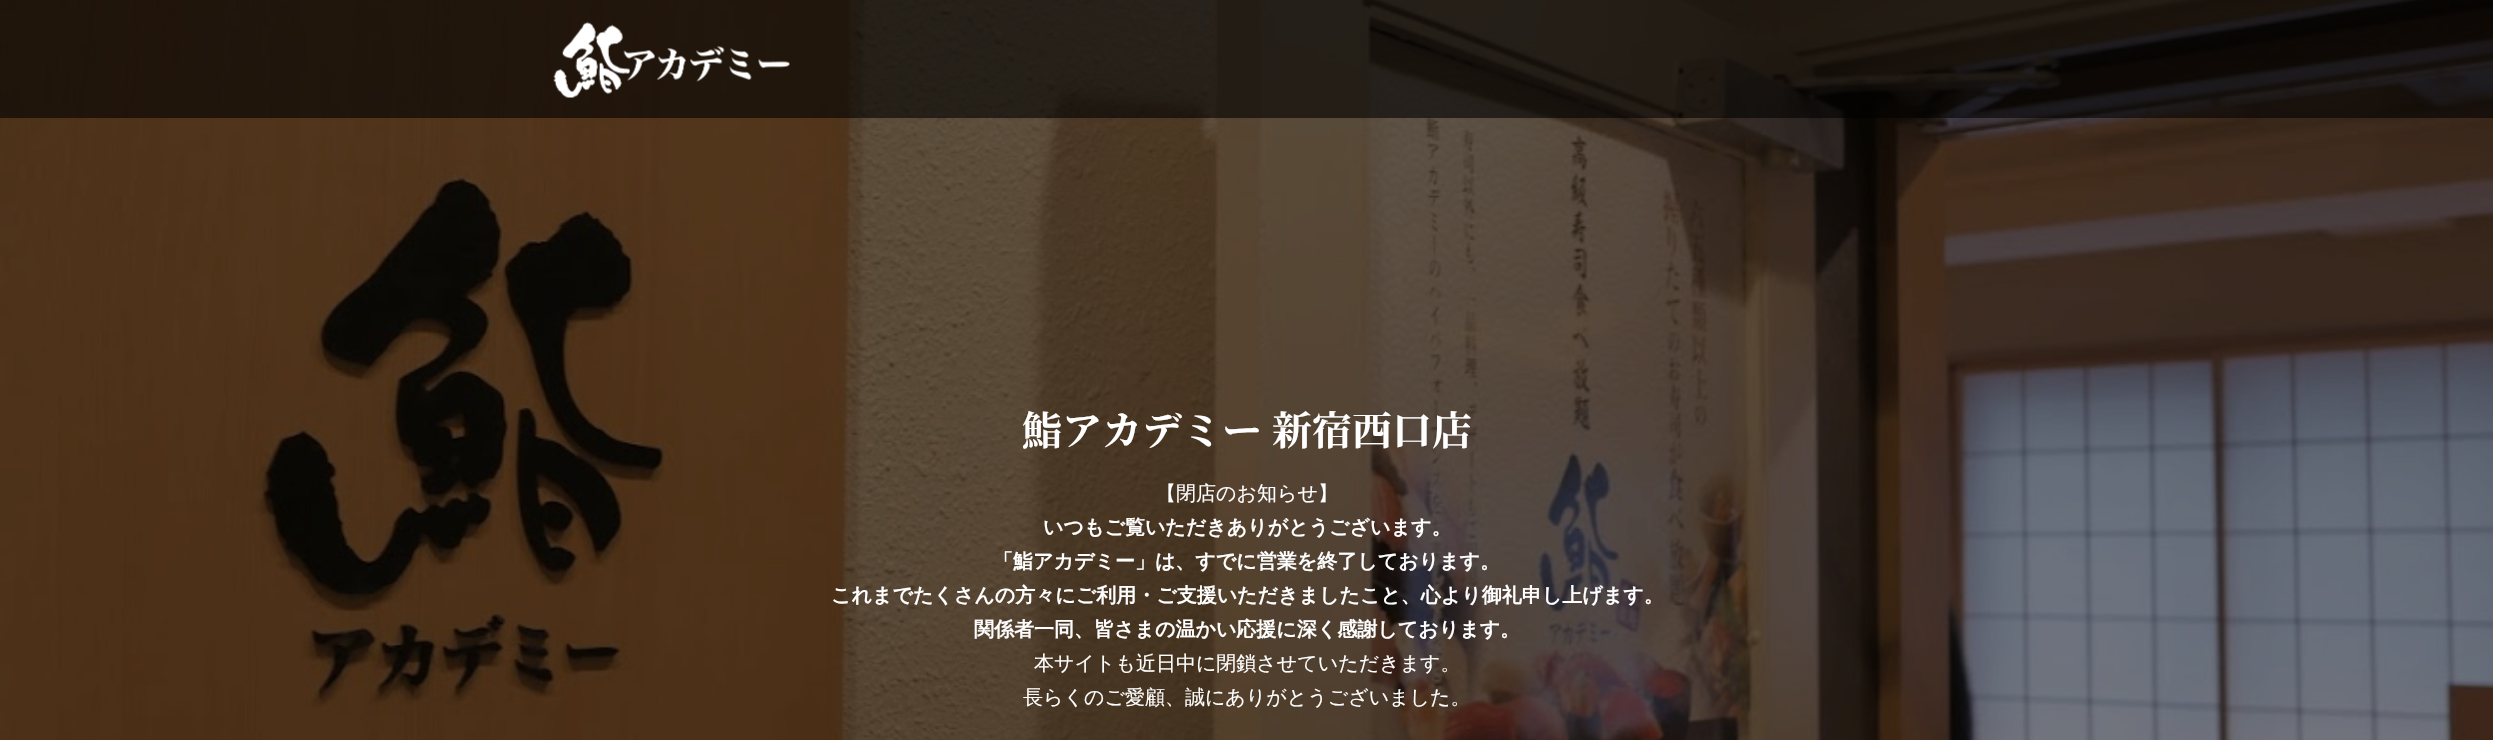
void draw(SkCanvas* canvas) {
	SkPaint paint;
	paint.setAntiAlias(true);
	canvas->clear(0xffffffff);
	canvas->drawImageRect(SkImages::DeferredFromEncodedData(SkData::MakeFromFileName("img2.png")), SkRect::MakeXYWH(0, 0, 2493, 740), SkSamplingOptions());
	paint.setColor(0x99000000);
	canvas->drawRect(SkRect::MakeXYWH(0, 0, 2493, 118), paint);
	canvas->drawImageRect(SkImages::DeferredFromEncodedData(SkData::MakeFromFileName("img1.png")), SkRect::MakeXYWH(553, 22, 237, 76), SkSamplingOptions());
	SkFont f1(fontMgr->matchFamilyStyle("Noto Serif JP", SkFontStyle::Bold()), 40);
	f1.setSubpixel(true);
	paint.setColor(0xffffffff);
	canvas->drawString("鮨アカデミー 新宿西口店", 1022, 445, f1, paint);
	SkFont f2(fontMgr->matchFamilyStyle("WenQuanYi Zen Hei", SkFontStyle(500, SkFontStyle::kNormal_Width, SkFontStyle::kUpright_Slant)), 20);
	f2.setSubpixel(true);
	canvas->drawString("【閉店のお知らせ】", 1156, 500, f2, paint);
	SkFont f3(fontMgr->matchFamilyStyle("WenQuanYi Zen Hei", SkFontStyle::Bold()), 20);
	f3.setSubpixel(true);
	canvas->drawString("いつもご覧いただきありがとうございます。", 1043, 534, f3, paint);
	canvas->drawString("「鮨アカデミー」は、すでに営業を終了しております。", 993, 568, f3, paint);
	canvas->drawString("これまでたくさんの方々にご利用・ご支援いただきましたこと、心より御礼申し上げます。", 831, 602, f3, paint);
	canvas->drawString("関係者一同、皆さまの温かい応援に深く感謝しております。", 974, 636, f3, paint);
	canvas->drawString("本サイトも近日中に閉鎖させていただきます。", 1034, 670, f2, paint);
	canvas->drawString("長らくのご愛顧、誠にありがとうございました。", 1023, 704, f2, paint);
}
